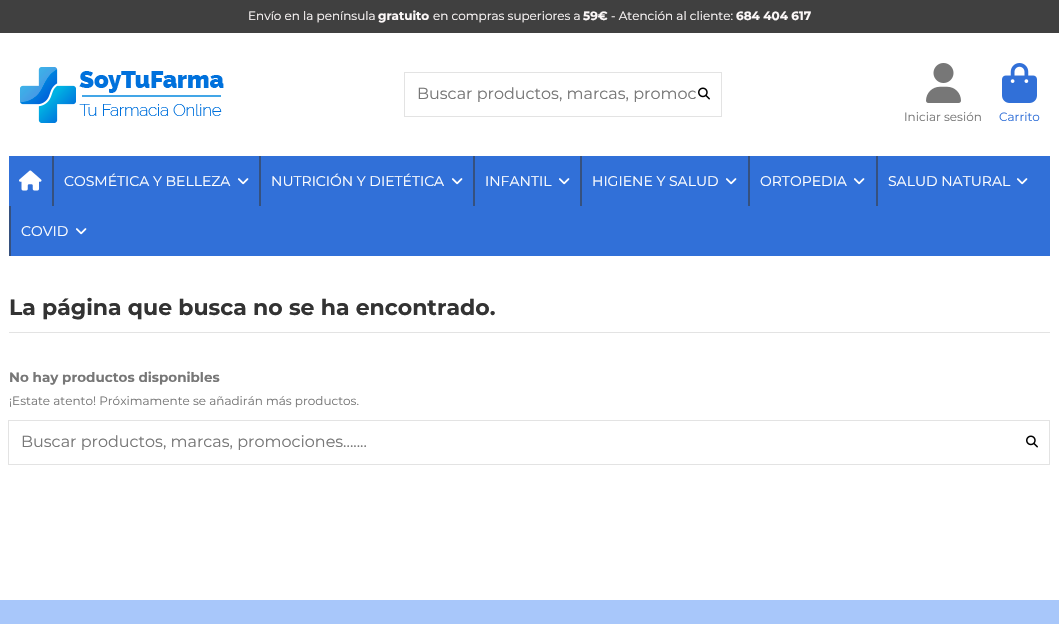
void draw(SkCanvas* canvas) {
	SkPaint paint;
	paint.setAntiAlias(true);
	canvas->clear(0xffffffff);
	paint.setColor(0xff404040);
	canvas->drawRect(SkRect::MakeXYWH(0, 0, 1059, 33), paint);
	SkFont f1(fontMgr->matchFamilyStyle("Montserrat", SkFontStyle::Normal()), 12);
	f1.setSubpixel(true);
	paint.setColor(0xfffdf9f9);
	canvas->drawString("Envío en la península", 248, 20, f1, paint);
	SkFont f2(fontMgr->matchFamilyStyle("Montserrat", SkFontStyle::Bold()), 12);
	f2.setSubpixel(true);
	canvas->drawString("gratuito", 378, 20, f2, paint);
	canvas->drawString("en compras superiores a", 433, 20, f1, paint);
	canvas->drawString("59€", 583, 20, f2, paint);
	canvas->drawString("- Atención al cliente:", 611, 20, f1, paint);
	canvas->drawString("684 404 617", 736, 20, f2, paint);
	canvas->drawImageRect(SkImages::DeferredFromEncodedData(SkData::MakeFromFileName("img1.png")), SkRect::MakeXYWH(20, 67, 204, 56), SkSamplingOptions());
	paint.setStroke(true);
	paint.setStrokeWidth(1);
	paint.setColor(0xffe3e3e3);
	canvas->drawRect(SkRect::MakeXYWH(404.5, 72.5, 317, 44), paint);
	SkFont f3(fontMgr->matchFamilyStyle("Montserrat", SkFontStyle::Normal()), 16);
	f3.setSubpixel(true);
	paint.setStroke(false);
	paint.setColor(0xff777777);
	canvas->drawString("Buscar productos, marcas, promoc", 417, 99, f3, paint);
	canvas->drawImageRect(SkImages::DeferredFromEncodedData(SkData::MakeFromFileName("img2.png")), SkRect::MakeXYWH(698, 87, 12, 13), SkSamplingOptions());
	canvas->drawImageRect(SkImages::DeferredFromEncodedData(SkData::MakeFromFileName("img3.png")), SkRect::MakeXYWH(926, 63, 35, 40), SkSamplingOptions());
	canvas->drawString("Iniciar sesión", 904, 121, f1, paint);
	canvas->drawImageRect(SkImages::DeferredFromEncodedData(SkData::MakeFromFileName("img4.png")), SkRect::MakeXYWH(1002, 63, 35, 40), SkSamplingOptions());
	paint.setColor(0xff3170d8);
	canvas->drawString("Carrito", 999, 121, f1, paint);
	canvas->drawRect(SkRect::MakeXYWH(9, 156, 1041, 100), paint);
	canvas->drawImageRect(SkImages::DeferredFromEncodedData(SkData::MakeFromFileName("img5.png")), SkRect::MakeXYWH(19, 170, 23, 21), SkSamplingOptions());
	paint.setColor(0xff36517e);
	canvas->drawRect(SkRect::MakeXYWH(52, 156, 2, 50), paint);
	SkFont f4(fontMgr->matchFamilyStyle("Montserrat", SkFontStyle::Normal()), 14);
	f4.setSubpixel(true);
	paint.setColor(0xffffffff);
	canvas->drawString("COSMÉTICA Y BELLEZA", 64, 186, f4, paint);
	canvas->drawImageRect(SkImages::DeferredFromEncodedData(SkData::MakeFromFileName("img6.png")), SkRect::MakeXYWH(238, 178, 11, 7), SkSamplingOptions());
	paint.setColor(0xff36517e);
	canvas->drawRect(SkRect::MakeXYWH(259, 156, 2, 50), paint);
	paint.setColor(0xffffffff);
	canvas->drawString("NUTRICIÓN Y DIETÉTICA", 271, 186, f4, paint);
	canvas->drawImageRect(SkImages::DeferredFromEncodedData(SkData::MakeFromFileName("img6.png")), SkRect::MakeXYWH(452, 178, 11, 7), SkSamplingOptions());
	paint.setColor(0xff36517e);
	canvas->drawRect(SkRect::MakeXYWH(473, 156, 2, 50), paint);
	paint.setColor(0xffffffff);
	canvas->drawString("INFANTIL", 485, 186, f4, paint);
	canvas->drawImageRect(SkImages::DeferredFromEncodedData(SkData::MakeFromFileName("img6.png")), SkRect::MakeXYWH(559, 178, 11, 7), SkSamplingOptions());
	paint.setColor(0xff36517e);
	canvas->drawRect(SkRect::MakeXYWH(580, 156, 2, 50), paint);
	paint.setColor(0xffffffff);
	canvas->drawString("HIGIENE Y SALUD", 592, 186, f4, paint);
	canvas->drawImageRect(SkImages::DeferredFromEncodedData(SkData::MakeFromFileName("img6.png")), SkRect::MakeXYWH(726, 178, 11, 7), SkSamplingOptions());
	paint.setColor(0xff36517e);
	canvas->drawRect(SkRect::MakeXYWH(748, 156, 2, 50), paint);
	paint.setColor(0xffffffff);
	canvas->drawString("ORTOPEDIA", 760, 186, f4, paint);
	canvas->drawImageRect(SkImages::DeferredFromEncodedData(SkData::MakeFromFileName("img6.png")), SkRect::MakeXYWH(854, 178, 11, 7), SkSamplingOptions());
	paint.setColor(0xff36517e);
	canvas->drawRect(SkRect::MakeXYWH(876, 156, 2, 50), paint);
	paint.setColor(0xffffffff);
	canvas->drawString("SALUD NATURAL", 888, 186, f4, paint);
	canvas->drawImageRect(SkImages::DeferredFromEncodedData(SkData::MakeFromFileName("img6.png")), SkRect::MakeXYWH(1017, 178, 11, 7), SkSamplingOptions());
	paint.setColor(0xff36517e);
	canvas->drawRect(SkRect::MakeXYWH(9, 206, 2, 50), paint);
	paint.setColor(0xffffffff);
	canvas->drawString("COVID", 21, 236, f4, paint);
	canvas->drawImageRect(SkImages::DeferredFromEncodedData(SkData::MakeFromFileName("img6.png")), SkRect::MakeXYWH(76, 228, 11, 7), SkSamplingOptions());
	paint.setColor(0xffe3e3e3);
	canvas->drawRect(SkRect::MakeXYWH(9, 332, 1041, 1), paint);
	SkFont f5(fontMgr->matchFamilyStyle("Montserrat", SkFontStyle::Bold()), 22);
	f5.setSubpixel(true);
	paint.setColor(0xff333333);
	canvas->drawString("La página que busca no se ha encontrado.", 9, 315, f5, paint);
	SkFont f6(fontMgr->matchFamilyStyle("Montserrat", SkFontStyle::Bold()), 13.5);
	f6.setSubpixel(true);
	paint.setColor(0xff777777);
	canvas->drawString("No hay productos disponibles", 9, 382, f6, paint);
	canvas->drawString("¡Estate atento! Próximamente se añadirán más productos.", 9, 405, f1, paint);
	paint.setStroke(true);
	paint.setColor(0xffe3e3e3);
	canvas->drawRect(SkRect::MakeXYWH(8.5, 420.5, 1041, 44), paint);
	paint.setStroke(false);
	paint.setColor(0xff777777);
	canvas->drawString("Buscar productos, marcas, promociones.......", 21, 447, f3, paint);
	canvas->drawImageRect(SkImages::DeferredFromEncodedData(SkData::MakeFromFileName("img2.png")), SkRect::MakeXYWH(1026, 435, 12, 13), SkSamplingOptions());
	paint.setColor(0xffa8c7fa);
	canvas->drawRect(SkRect::MakeXYWH(0, 600, 1059, 24), paint);
}
